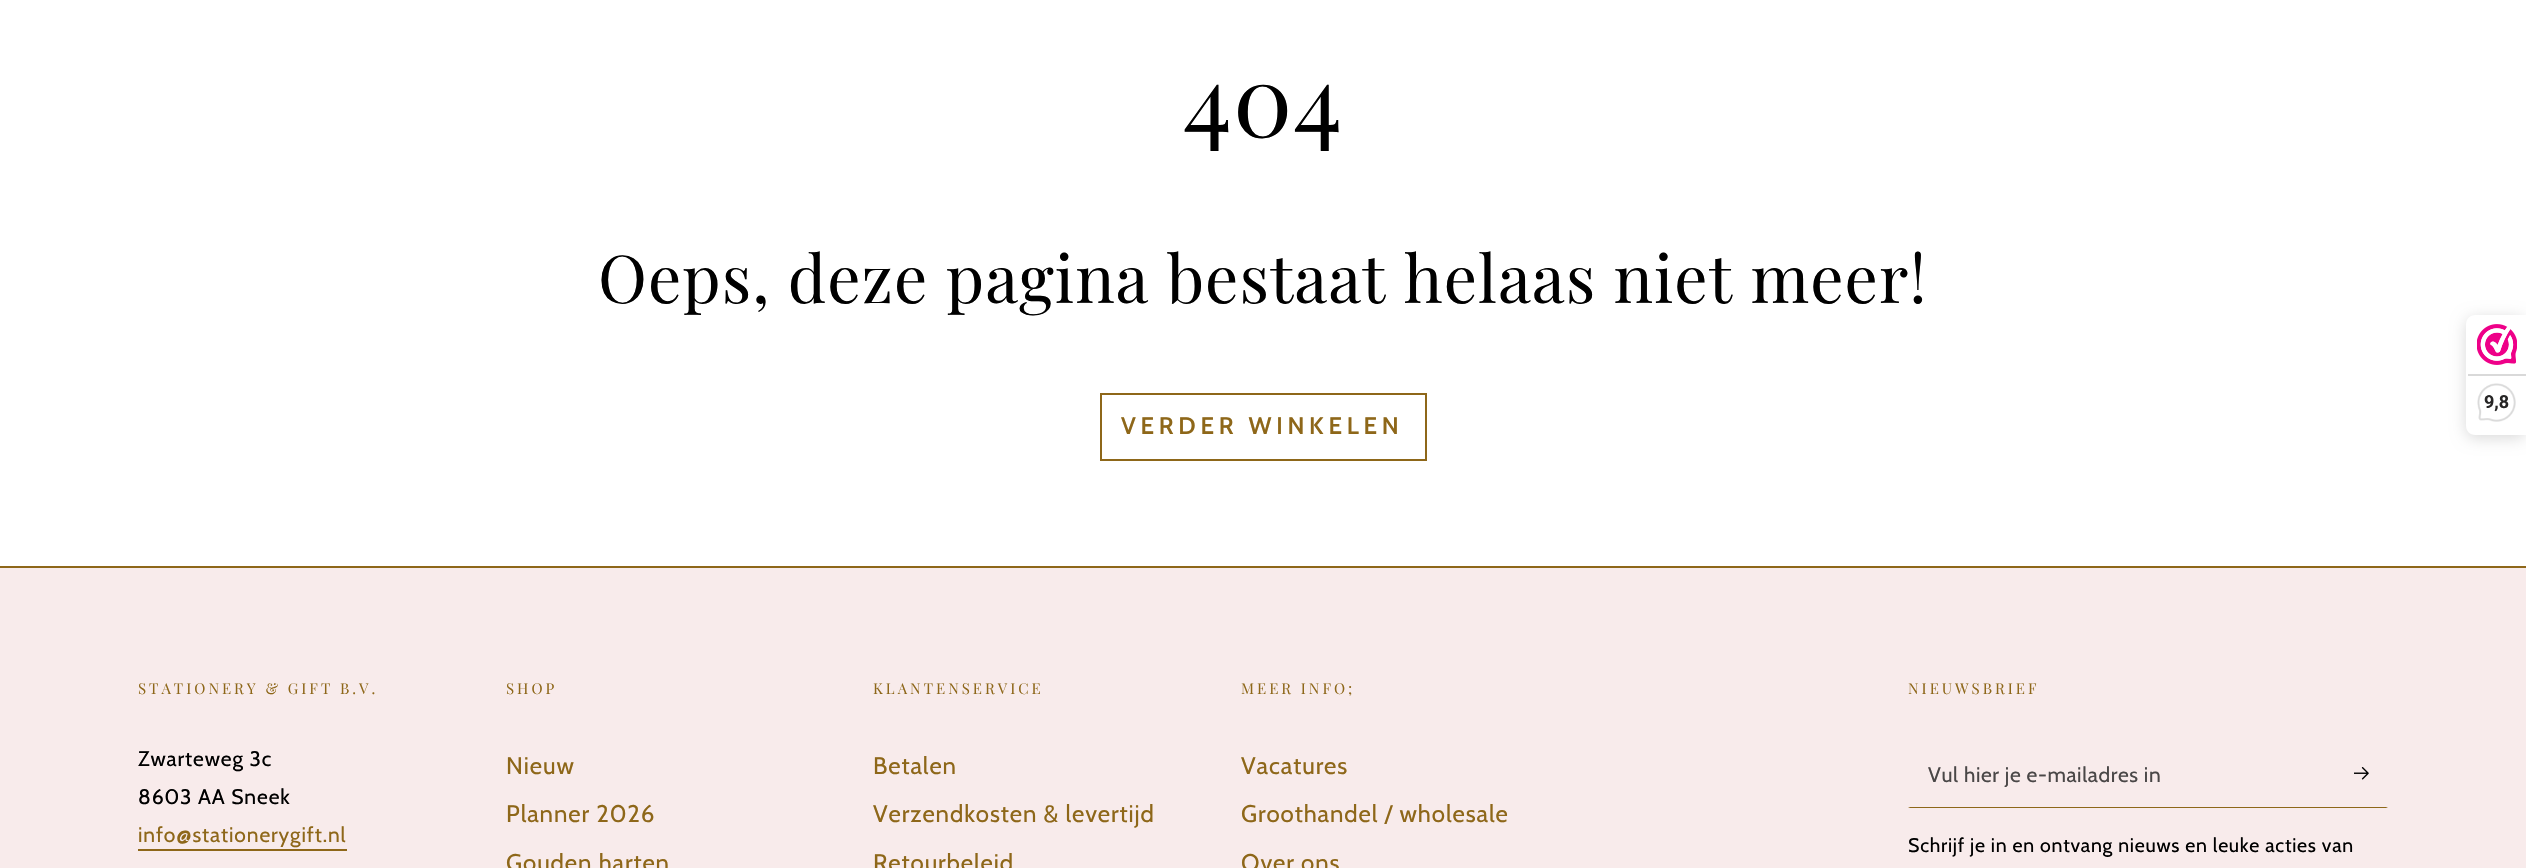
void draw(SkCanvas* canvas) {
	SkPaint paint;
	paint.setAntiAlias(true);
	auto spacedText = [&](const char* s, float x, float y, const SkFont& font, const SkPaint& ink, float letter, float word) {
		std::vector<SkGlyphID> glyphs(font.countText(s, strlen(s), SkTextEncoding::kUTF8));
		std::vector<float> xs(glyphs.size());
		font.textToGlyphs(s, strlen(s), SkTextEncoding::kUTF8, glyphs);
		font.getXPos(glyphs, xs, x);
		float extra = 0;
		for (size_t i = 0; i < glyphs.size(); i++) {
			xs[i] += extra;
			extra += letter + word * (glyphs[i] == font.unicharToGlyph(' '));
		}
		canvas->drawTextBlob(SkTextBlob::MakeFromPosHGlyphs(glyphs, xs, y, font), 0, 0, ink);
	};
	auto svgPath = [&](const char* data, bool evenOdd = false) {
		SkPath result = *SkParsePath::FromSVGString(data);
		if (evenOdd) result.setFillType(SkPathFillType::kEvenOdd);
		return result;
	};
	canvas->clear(0xffffffff);
	SkFont f1(fontMgr->matchFamilyStyle("Playfair Display", SkFontStyle::Normal()), 99);
	f1.setSubpixel(true);
	paint.setColor(0xff000000);
	spacedText("404", 1183, 137, f1, paint, 1, 0);
	SkFont f2(fontMgr->matchFamilyStyle("Playfair Display", SkFontStyle::Normal()), 66);
	f2.setSubpixel(true);
	spacedText("Oeps, deze pagina bestaat helaas niet meer!", 598, 303, f2, paint, 1, 0);
	paint.setStroke(true);
	paint.setStrokeWidth(2);
	paint.setColor(0xff8e6719);
	canvas->drawRect(SkRect::MakeXYWH(1101, 394, 325, 66), paint);
	SkFont f3(fontMgr->matchFamilyStyle("Cabin", SkFontStyle(600, SkFontStyle::kNormal_Width, SkFontStyle::kUpright_Slant)), 24);
	f3.setSubpixel(true);
	paint.setStroke(false);
	spacedText("VERDER WINKELEN", 1121, 434, f3, paint, 4.75, 0);
	paint.setColor(0xfff8ebeb);
	canvas->drawRect(SkRect::MakeXYWH(0, 568, 2526, 300), paint);
	paint.setColor(0xff8e6719);
	canvas->drawRect(SkRect::MakeXYWH(0, 566, 2526, 2), paint);
	SkFont f4(fontMgr->matchFamilyStyle("Playfair Display", SkFontStyle::Normal()), 15);
	f4.setSubpixel(true);
	spacedText("STATIONERY & GIFT B.V.", 138, 694, f4, paint, 3, 0);
	SkFont f5(fontMgr->matchFamilyStyle("Cabin", SkFontStyle::Normal()), 21);
	f5.setSubpixel(true);
	paint.setColor(0xff000000);
	spacedText("Zwarteweg 3c", 138, 766, f5, paint, 0.9, 0);
	spacedText("8603 AA Sneek", 138, 804, f5, paint, 0.9, 0);
	paint.setColor(0xff8e6719);
	spacedText("info@stationerygift.nl", 138, 842, f5, paint, 0.9, 0);
	canvas->drawRect(SkRect::MakeXYWH(138, 849, 209, 2), paint);
	spacedText("SHOP", 506, 694, f4, paint, 3, 0);
	SkFont f6(fontMgr->matchFamilyStyle("Cabin", SkFontStyle::Normal()), 24);
	f6.setSubpixel(true);
	spacedText("Nieuw", 506, 774, f6, paint, 0.9, 0);
	spacedText("Planner 2026", 506, 822, f6, paint, 0.9, 0);
	spacedText("Gouden harten", 506, 871, f6, paint, 0.9, 0);
	spacedText("KLANTENSERVICE", 873, 694, f4, paint, 3, 0);
	spacedText("Betalen", 873, 774, f6, paint, 0.9, 0);
	spacedText("Verzendkosten & levertijd", 873, 822, f6, paint, 0.9, 0);
	spacedText("Retourbeleid", 873, 871, f6, paint, 0.9, 0);
	spacedText("MEER INFO;", 1241, 694, f4, paint, 3, 0);
	spacedText("Vacatures", 1241, 774, f6, paint, 0.9, 0);
	spacedText("Groothandel / wholesale", 1241, 822, f6, paint, 0.9, 0);
	spacedText("Over ons", 1241, 871, f6, paint, 0.9, 0);
	spacedText("NIEUWSBRIEF", 1908, 694, f4, paint, 3, 0);
	canvas->drawPath(svgPath("M2388 808H1908L1910 807H2386Z"), paint);
	paint.setColor(0xff4a4747);
	spacedText("Vul hier je e-mailadres in", 1928, 782, f5, paint, 0.6, 0);
	canvas->drawImageRect(SkImages::DeferredFromEncodedData(SkData::MakeFromFileName("img1.png")), SkRect::MakeXYWH(2354, 767, 15, 13), SkSamplingOptions());
	SkFont f7(fontMgr->matchFamilyStyle("Cabin", SkFontStyle::Normal()), 19.5);
	f7.setSubpixel(true);
	paint.setColor(0xff000000);
	spacedText("Schrijf je in en ontvang nieuws en leuke acties van", 1908, 852, f7, paint, 0.75, 0);
	paint.setColor(0x26000000);
	paint.setMaskFilter(SkMaskFilter::MakeBlur(kNormal_SkBlurStyle, 7.5));
	canvas->drawRoundRect(SkRect::MakeXYWH(2466, 318, 60, 120), 9, 9, paint);
	paint.setMaskFilter(nullptr);
	paint.setColor(0xffffffff);
	canvas->drawPath(svgPath("M2475 315H2526V435H2475C2470 435 2466 431 2466 426V324C2466 319 2470 315 2475 315Z"), paint);
	canvas->drawImageRect(SkImages::DeferredFromEncodedData(SkData::MakeFromFileName("img2.png")), SkRect::MakeXYWH(2477, 324, 40, 41), SkSamplingOptions());
	paint.setColor(0xffd9d9d9);
	canvas->drawRect(SkRect::MakeXYWH(2468, 374, 58, 2), paint);
	canvas->drawImageRect(SkImages::DeferredFromEncodedData(SkData::MakeFromFileName("img3.png")), SkRect::MakeXYWH(2477, 383, 39, 39), SkSamplingOptions());
	SkFont f8(fontMgr->matchFamilyStyle("Roboto", SkFontStyle::Bold()), 18);
	f8.setSubpixel(true);
	paint.setColor(0xff272626);
	canvas->drawString("9,8", 2484, 408, f8, paint);
}
